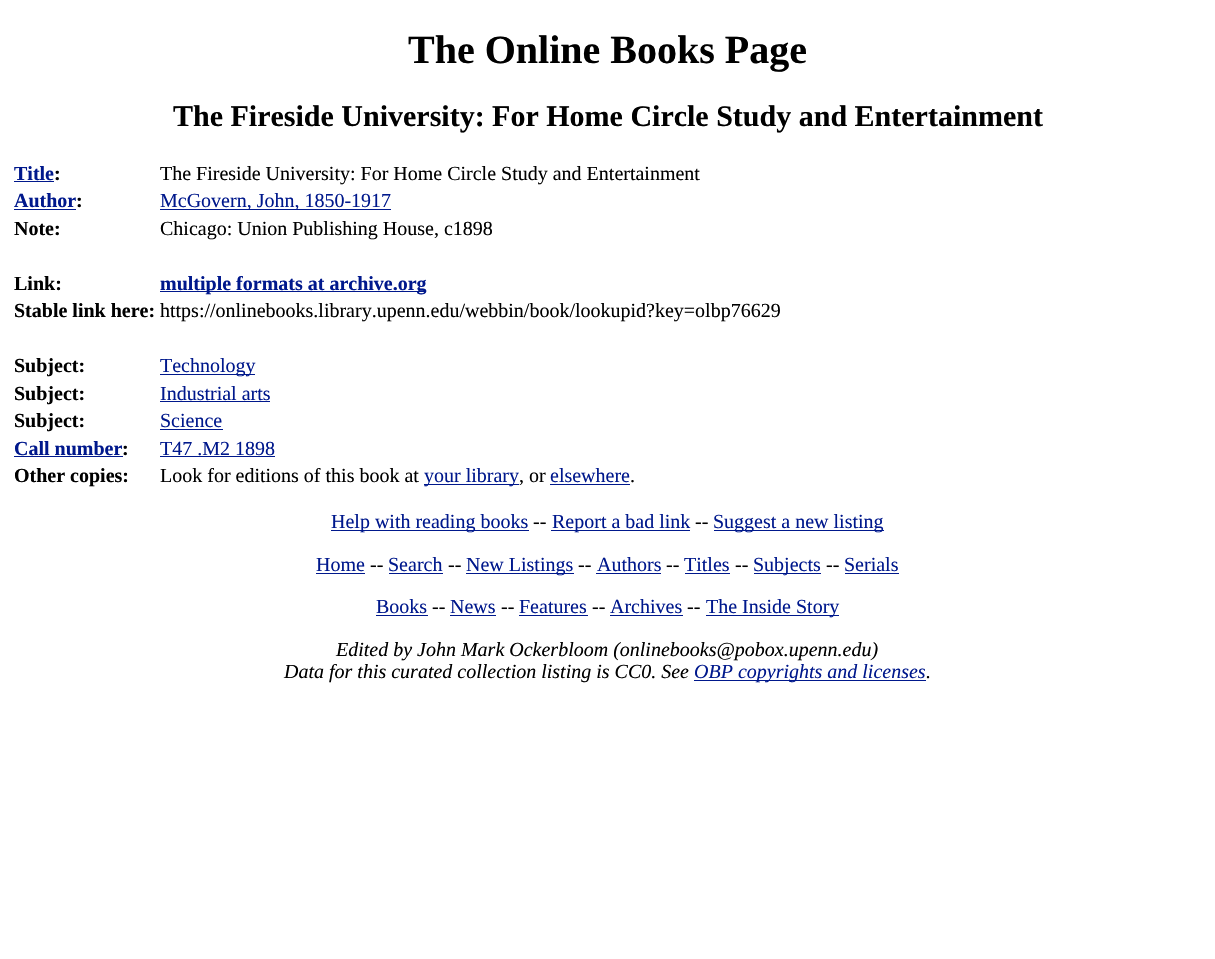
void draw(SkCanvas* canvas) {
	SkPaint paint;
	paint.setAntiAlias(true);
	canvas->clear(0xffffffff);
	SkFont f1(fontMgr->matchFamilyStyle("Liberation Serif", SkFontStyle::Bold()), 40);
	f1.setSubpixel(true);
	paint.setColor(0xff000000);
	canvas->drawString("The Online Books Page", 408, 63, f1, paint);
	SkFont f2(fontMgr->matchFamilyStyle("Liberation Serif", SkFontStyle::Bold()), 30);
	f2.setSubpixel(true);
	canvas->drawString("The Fireside University: For Home Circle Study and Entertainment", 173, 126, f2, paint);
	SkFont f3(fontMgr->matchFamilyStyle("Liberation Serif", SkFontStyle::Bold()), 20);
	f3.setSubpixel(true);
	paint.setColor(0xff00188c);
	canvas->drawString("Title", 14, 180, f3, paint);
	paint.setColor(0xff000000);
	canvas->drawString(":", 54, 180, f3, paint);
	paint.setColor(0xff00188c);
	canvas->drawRect(SkRect::MakeXYWH(14, 181, 40, 1), paint);
	SkFont f4(fontMgr->matchFamilyStyle("Liberation Serif", SkFontStyle::Normal()), 20);
	f4.setSubpixel(true);
	paint.setColor(0xff000000);
	canvas->drawString("The Fireside University: For Home Circle Study and Entertainment", 160, 180, f4, paint);
	paint.setColor(0xff00188c);
	canvas->drawString("Author", 14, 207, f3, paint);
	paint.setColor(0xff000000);
	canvas->drawString(":", 76, 207, f3, paint);
	paint.setColor(0xff00188c);
	canvas->drawRect(SkRect::MakeXYWH(14, 209, 62, 1), paint);
	canvas->drawRect(SkRect::MakeXYWH(160, 209, 231, 1), paint);
	canvas->drawString("McGovern, John, 1850-1917", 160, 207, f4, paint);
	paint.setColor(0xff000000);
	canvas->drawString("Note:", 14, 235, f3, paint);
	canvas->drawString("Chicago: Union Publishing House, c1898", 160, 235, f4, paint);
	canvas->drawString("Link:", 14, 290, f3, paint);
	paint.setColor(0xff00188c);
	canvas->drawRect(SkRect::MakeXYWH(160, 291, 266, 1), paint);
	canvas->drawString("multiple formats at archive.org", 160, 290, f3, paint);
	paint.setColor(0xff000000);
	canvas->drawString("Stable link here:", 14, 317, f3, paint);
	canvas->drawString("https://onlinebooks.library.upenn.edu/webbin/book/lookupid?key=olbp76629", 160, 317, f4, paint);
	canvas->drawString("Subject:", 14, 372, f3, paint);
	paint.setColor(0xff00188c);
	canvas->drawRect(SkRect::MakeXYWH(160, 374, 95, 1), paint);
	canvas->drawString("Technology", 160, 372, f4, paint);
	paint.setColor(0xff000000);
	canvas->drawString("Subject:", 14, 400, f3, paint);
	paint.setColor(0xff00188c);
	canvas->drawString("Industrial arts", 160, 400, f4, paint);
	canvas->drawRect(SkRect::MakeXYWH(160, 401, 110, 1), paint);
	paint.setColor(0xff000000);
	canvas->drawString("Subject:", 14, 427, f3, paint);
	paint.setColor(0xff00188c);
	canvas->drawString("Science", 160, 427, f4, paint);
	canvas->drawRect(SkRect::MakeXYWH(160, 429, 63, 1), paint);
	canvas->drawString("Call number", 14, 455, f3, paint);
	paint.setColor(0xff000000);
	canvas->drawString(":", 122, 455, f3, paint);
	paint.setColor(0xff00188c);
	canvas->drawRect(SkRect::MakeXYWH(14, 456, 109, 1), paint);
	canvas->drawString("T47 .M2 1898", 160, 455, f4, paint);
	canvas->drawRect(SkRect::MakeXYWH(160, 456, 115, 1), paint);
	paint.setColor(0xff000000);
	canvas->drawString("Other copies:", 14, 482, f3, paint);
	canvas->drawString("Look for editions of this book at", 160, 482, f4, paint);
	paint.setColor(0xff00188c);
	canvas->drawRect(SkRect::MakeXYWH(424, 484, 95, 1), paint);
	canvas->drawString("your library", 424, 482, f4, paint);
	paint.setColor(0xff000000);
	canvas->drawString(", or", 519, 482, f4, paint);
	paint.setColor(0xff00188c);
	canvas->drawString("elsewhere", 550, 482, f4, paint);
	canvas->drawRect(SkRect::MakeXYWH(550, 484, 80, 1), paint);
	paint.setColor(0xff000000);
	canvas->drawString(".", 630, 482, f4, paint);
	paint.setColor(0xff00188c);
	canvas->drawRect(SkRect::MakeXYWH(331, 530, 198, 1), paint);
	canvas->drawString("Help with reading books", 331, 528, f4, paint);
	paint.setColor(0xff000000);
	canvas->drawString("--", 533, 528, f4, paint);
	paint.setColor(0xff00188c);
	canvas->drawRect(SkRect::MakeXYWH(551, 530, 139, 1), paint);
	canvas->drawString("Report a bad link", 552, 528, f4, paint);
	paint.setColor(0xff000000);
	canvas->drawString("--", 695, 528, f4, paint);
	paint.setColor(0xff00188c);
	canvas->drawRect(SkRect::MakeXYWH(714, 530, 170, 1), paint);
	canvas->drawString("Suggest a new listing", 713, 528, f4, paint);
	canvas->drawString("Home", 316, 571, f4, paint);
	canvas->drawRect(SkRect::MakeXYWH(316, 573, 49, 1), paint);
	paint.setColor(0xff000000);
	canvas->drawString("--", 370, 571, f4, paint);
	paint.setColor(0xff00188c);
	canvas->drawString("Search", 388, 571, f4, paint);
	canvas->drawRect(SkRect::MakeXYWH(389, 573, 54, 1), paint);
	paint.setColor(0xff000000);
	canvas->drawString("--", 448, 571, f4, paint);
	paint.setColor(0xff00188c);
	canvas->drawRect(SkRect::MakeXYWH(466, 573, 108, 1), paint);
	canvas->drawString("New Listings", 466, 571, f4, paint);
	paint.setColor(0xff000000);
	canvas->drawString("--", 578, 571, f4, paint);
	paint.setColor(0xff00188c);
	canvas->drawString("Authors", 597, 571, f4, paint);
	canvas->drawRect(SkRect::MakeXYWH(596, 573, 65, 1), paint);
	paint.setColor(0xff000000);
	canvas->drawString("--", 666, 571, f4, paint);
	paint.setColor(0xff00188c);
	canvas->drawString("Titles", 684, 571, f4, paint);
	canvas->drawRect(SkRect::MakeXYWH(685, 573, 45, 1), paint);
	paint.setColor(0xff000000);
	canvas->drawString("--", 735, 571, f4, paint);
	paint.setColor(0xff00188c);
	canvas->drawRect(SkRect::MakeXYWH(754, 573, 67, 1), paint);
	canvas->drawString("Subjects", 753, 571, f4, paint);
	paint.setColor(0xff000000);
	canvas->drawString("--", 826, 571, f4, paint);
	paint.setColor(0xff00188c);
	canvas->drawString("Serials", 844, 571, f4, paint);
	canvas->drawRect(SkRect::MakeXYWH(845, 573, 54, 1), paint);
	canvas->drawString("Books", 376, 613, f4, paint);
	canvas->drawRect(SkRect::MakeXYWH(376, 615, 52, 1), paint);
	paint.setColor(0xff000000);
	canvas->drawString("--", 432, 613, f4, paint);
	paint.setColor(0xff00188c);
	canvas->drawString("News", 450, 613, f4, paint);
	canvas->drawRect(SkRect::MakeXYWH(450, 615, 46, 1), paint);
	paint.setColor(0xff000000);
	canvas->drawString("--", 501, 613, f4, paint);
	paint.setColor(0xff00188c);
	canvas->drawString("Features", 519, 613, f4, paint);
	canvas->drawRect(SkRect::MakeXYWH(519, 615, 69, 1), paint);
	paint.setColor(0xff000000);
	canvas->drawString("--", 592, 613, f4, paint);
	paint.setColor(0xff00188c);
	canvas->drawString("Archives", 610, 613, f4, paint);
	canvas->drawRect(SkRect::MakeXYWH(610, 615, 73, 1), paint);
	paint.setColor(0xff000000);
	canvas->drawString("--", 687, 613, f4, paint);
	paint.setColor(0xff00188c);
	canvas->drawRect(SkRect::MakeXYWH(706, 615, 133, 1), paint);
	canvas->drawString("The Inside Story", 706, 613, f4, paint);
	SkFont f5(fontMgr->matchFamilyStyle("Liberation Serif", SkFontStyle::Italic()), 20);
	f5.setSubpixel(true);
	paint.setColor(0xff000000);
	canvas->drawString("Edited by John Mark Ockerbloom (onlinebooks@pobox.upenn.edu)", 336, 656, f5, paint);
	canvas->drawString("Data for this curated collection listing is CC0. See", 284, 678, f5, paint);
	paint.setColor(0xff00188c);
	canvas->drawRect(SkRect::MakeXYWH(694, 680, 232, 1), paint);
	canvas->drawString("OBP copyrights and licenses", 694, 678, f5, paint);
	paint.setColor(0xff000000);
	canvas->drawString(".", 926, 678, f5, paint);
}
